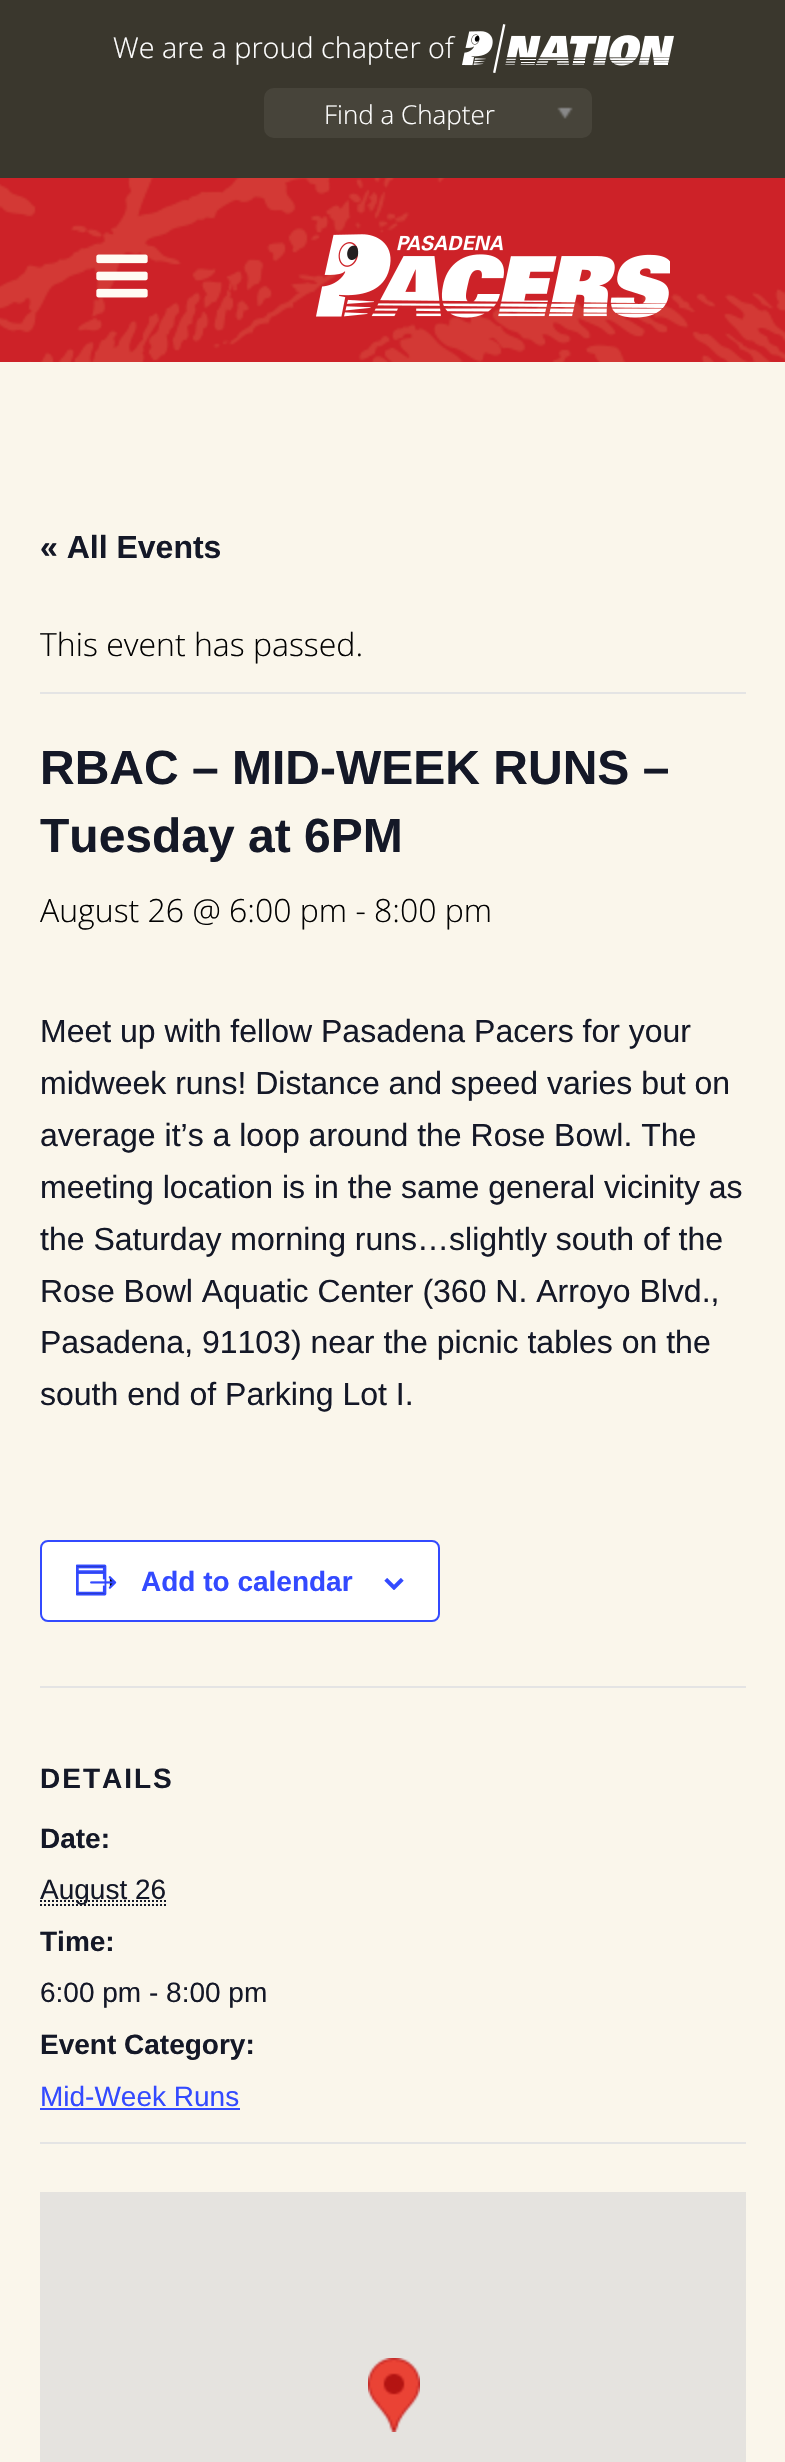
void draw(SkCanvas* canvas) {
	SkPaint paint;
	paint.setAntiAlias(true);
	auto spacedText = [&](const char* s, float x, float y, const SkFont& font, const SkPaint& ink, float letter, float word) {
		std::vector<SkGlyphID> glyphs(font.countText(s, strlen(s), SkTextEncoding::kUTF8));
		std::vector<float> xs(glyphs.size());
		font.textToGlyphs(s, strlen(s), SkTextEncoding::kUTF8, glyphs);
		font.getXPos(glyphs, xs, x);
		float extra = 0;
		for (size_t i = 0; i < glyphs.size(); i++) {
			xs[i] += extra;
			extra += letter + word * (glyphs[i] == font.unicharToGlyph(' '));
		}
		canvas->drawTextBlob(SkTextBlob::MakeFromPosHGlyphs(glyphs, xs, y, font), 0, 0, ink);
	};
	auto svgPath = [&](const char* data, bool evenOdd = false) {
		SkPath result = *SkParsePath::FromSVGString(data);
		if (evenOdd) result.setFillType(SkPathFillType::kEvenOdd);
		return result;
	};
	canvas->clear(0xfffaf6eb);
	paint.setColor(0xff3a372d);
	canvas->drawRect(SkRect::MakeXYWH(0, 0, 785, 178), paint);
	SkFont f1(fontMgr->matchFamilyStyle("Open Sans", SkFontStyle(300, SkFontStyle::kNormal_Width, SkFontStyle::kUpright_Slant)), 28.75);
	f1.setSubpixel(true);
	paint.setColor(0xffffffff);
	canvas->drawString("We are a proud chapter of", 113, 58, f1, paint);
	canvas->drawImageRect(SkImages::DeferredFromEncodedData(SkData::MakeFromFileName("img1.png")), SkRect::MakeXYWH(462, 24, 212, 49), SkSamplingOptions());
	paint.setColor(0xff47443a);
	canvas->drawRoundRect(SkRect::MakeXYWH(265, 89, 326, 48), 9, 9, paint);
	paint.setStroke(true);
	paint.setStrokeWidth(2);
	canvas->drawRoundRect(SkRect::MakeXYWH(265, 89, 326, 48), 9, 9, paint);
	SkFont f2(fontMgr->matchFamilyStyle("Open Sans", SkFontStyle(300, SkFontStyle::kNormal_Width, SkFontStyle::kUpright_Slant)), 26);
	f2.setSubpixel(true);
	paint.setStroke(false);
	paint.setColor(0xffffffff);
	canvas->drawString("Find a Chapter", 324, 124, f2, paint);
	canvas->drawImageRect(SkImages::DeferredFromEncodedData(SkData::MakeFromFileName("img2.png")), SkRect::MakeXYWH(557, 107, 16, 12), SkSamplingOptions());
	paint.setColor(0xffcd2228);
	canvas->drawRect(SkRect::MakeXYWH(0, 178, 785, 184), paint);
	canvas->drawImageRect(SkImages::DeferredFromEncodedData(SkData::MakeFromFileName("img3.png")), SkRect::MakeXYWH(0, 178, 785, 184), SkSamplingOptions());
	canvas->drawImageRect(SkImages::DeferredFromEncodedData(SkData::MakeFromFileName("img4.png")), SkRect::MakeXYWH(96, 254, 52, 44), SkSamplingOptions());
	canvas->drawImageRect(SkImages::DeferredFromEncodedData(SkData::MakeFromFileName("img5.png")), SkRect::MakeXYWH(316, 234, 354, 84), SkSamplingOptions());
	SkFont f3(fontMgr->matchFamilyStyle("Liberation Sans", SkFontStyle::Bold()), 32);
	f3.setSubpixel(true);
	paint.setColor(0xff141827);
	canvas->drawString("« All Events", 40, 558, f3, paint);
	paint.setColor(0xffe4e4e4);
	canvas->drawRect(SkRect::MakeXYWH(40, 692, 706, 2), paint);
	SkFont f4(fontMgr->matchFamilyStyle("Open Sans", SkFontStyle(300, SkFontStyle::kNormal_Width, SkFontStyle::kUpright_Slant)), 32);
	f4.setSubpixel(true);
	paint.setColor(0xff020202);
	canvas->drawString("This event has passed.", 40, 656, f4, paint);
	SkFont f5(fontMgr->matchFamilyStyle("Liberation Sans", SkFontStyle::Bold()), 48);
	f5.setSubpixel(true);
	paint.setColor(0xff141827);
	canvas->drawString("RBAC – MID-WEEK RUNS –", 40, 784, f5, paint);
	canvas->drawString("Tuesday at 6PM", 40, 852, f5, paint);
	paint.setColor(0xff020202);
	canvas->drawString("August 26 @ 6:00 pm - 8:00 pm", 40, 922, f4, paint);
	SkFont f6(fontMgr->matchFamilyStyle("Liberation Sans", SkFontStyle::Normal()), 32);
	f6.setSubpixel(true);
	paint.setColor(0xff141827);
	canvas->drawString("Meet up with fellow Pasadena Pacers for your", 40, 1042, f6, paint);
	canvas->drawString("midweek runs! Distance and speed varies but on", 40, 1094, f6, paint);
	canvas->drawString("average it’s a loop around the Rose Bowl. The", 40, 1146, f6, paint);
	canvas->drawString("meeting location is in the same general vicinity as", 40, 1198, f6, paint);
	canvas->drawString("the Saturday morning runs…slightly south of the", 40, 1250, f6, paint);
	canvas->drawString("Rose Bowl Aquatic Center (360 N. Arroyo Blvd.,", 40, 1302, f6, paint);
	canvas->drawString("Pasadena, 91103) near the picnic tables on the", 40, 1353, f6, paint);
	canvas->drawString("south end of Parking Lot I.", 40, 1405, f6, paint);
	paint.setColor(0xffffffff);
	canvas->drawRoundRect(SkRect::MakeXYWH(41, 1541, 398, 80), 7, 7, paint);
	paint.setStroke(true);
	paint.setColor(0xff334aff);
	canvas->drawRoundRect(SkRect::MakeXYWH(41, 1541, 398, 80), 7, 7, paint);
	canvas->drawImageRect(SkImages::DeferredFromEncodedData(SkData::MakeFromFileName("img6.png")), SkRect::MakeXYWH(76, 1564, 41, 32), SkSamplingOptions());
	SkFont f7(fontMgr->matchFamilyStyle("Liberation Sans", SkFontStyle::Bold()), 28);
	f7.setSubpixel(true);
	paint.setStroke(false);
	canvas->drawString("Add to calendar", 141, 1591, f7, paint);
	canvas->drawImageRect(SkImages::DeferredFromEncodedData(SkData::MakeFromFileName("img7.png")), SkRect::MakeXYWH(384, 1578, 20, 12), SkSamplingOptions());
	paint.setColor(0xffe4e4e4);
	canvas->drawRect(SkRect::MakeXYWH(40, 1686, 706, 2), paint);
	paint.setColor(0xff141827);
	spacedText("DETAILS", 40, 1788, f7, paint, 2, 0);
	canvas->drawString("Date:", 40, 1848, f7, paint);
	paint.setStroke(true);
	paint.setPathEffect(SkDashPathEffect::Make({{2, 2}}, 0));
	canvas->drawPath(svgPath("M40 1905H166"), paint);
	paint.setPathEffect(nullptr);
	paint.setPathEffect(SkDashPathEffect::Make({{2, 2}}, 0));
	canvas->drawPath(svgPath("M40 1901H166"), paint);
	paint.setPathEffect(nullptr);
	SkFont f8(fontMgr->matchFamilyStyle("Liberation Sans", SkFontStyle::Normal()), 28);
	f8.setSubpixel(true);
	paint.setStroke(false);
	canvas->drawString("August 26", 40, 1899, f8, paint);
	canvas->drawString("Time:", 40, 1951, f7, paint);
	canvas->drawString("6:00 pm - 8:00 pm", 40, 2002, f8, paint);
	canvas->drawString("Event Category:", 40, 2054, f7, paint);
	paint.setColor(0xff334aff);
	canvas->drawString("Mid-Week Runs", 40, 2106, f8, paint);
	canvas->drawRect(SkRect::MakeXYWH(40, 2108, 200, 2), paint);
	paint.setColor(0xffe4e4e4);
	canvas->drawRect(SkRect::MakeXYWH(40, 2142, 706, 2), paint);
	paint.setColor(0xffe5e3df);
	canvas->drawRect(SkRect::MakeXYWH(40, 2192, 706, 270), paint);
	canvas->drawImageRect(SkImages::DeferredFromEncodedData(SkData::MakeFromFileName("img8.png")), SkRect::MakeXYWH(368, 2358, 52, 74), SkSamplingOptions());
}
